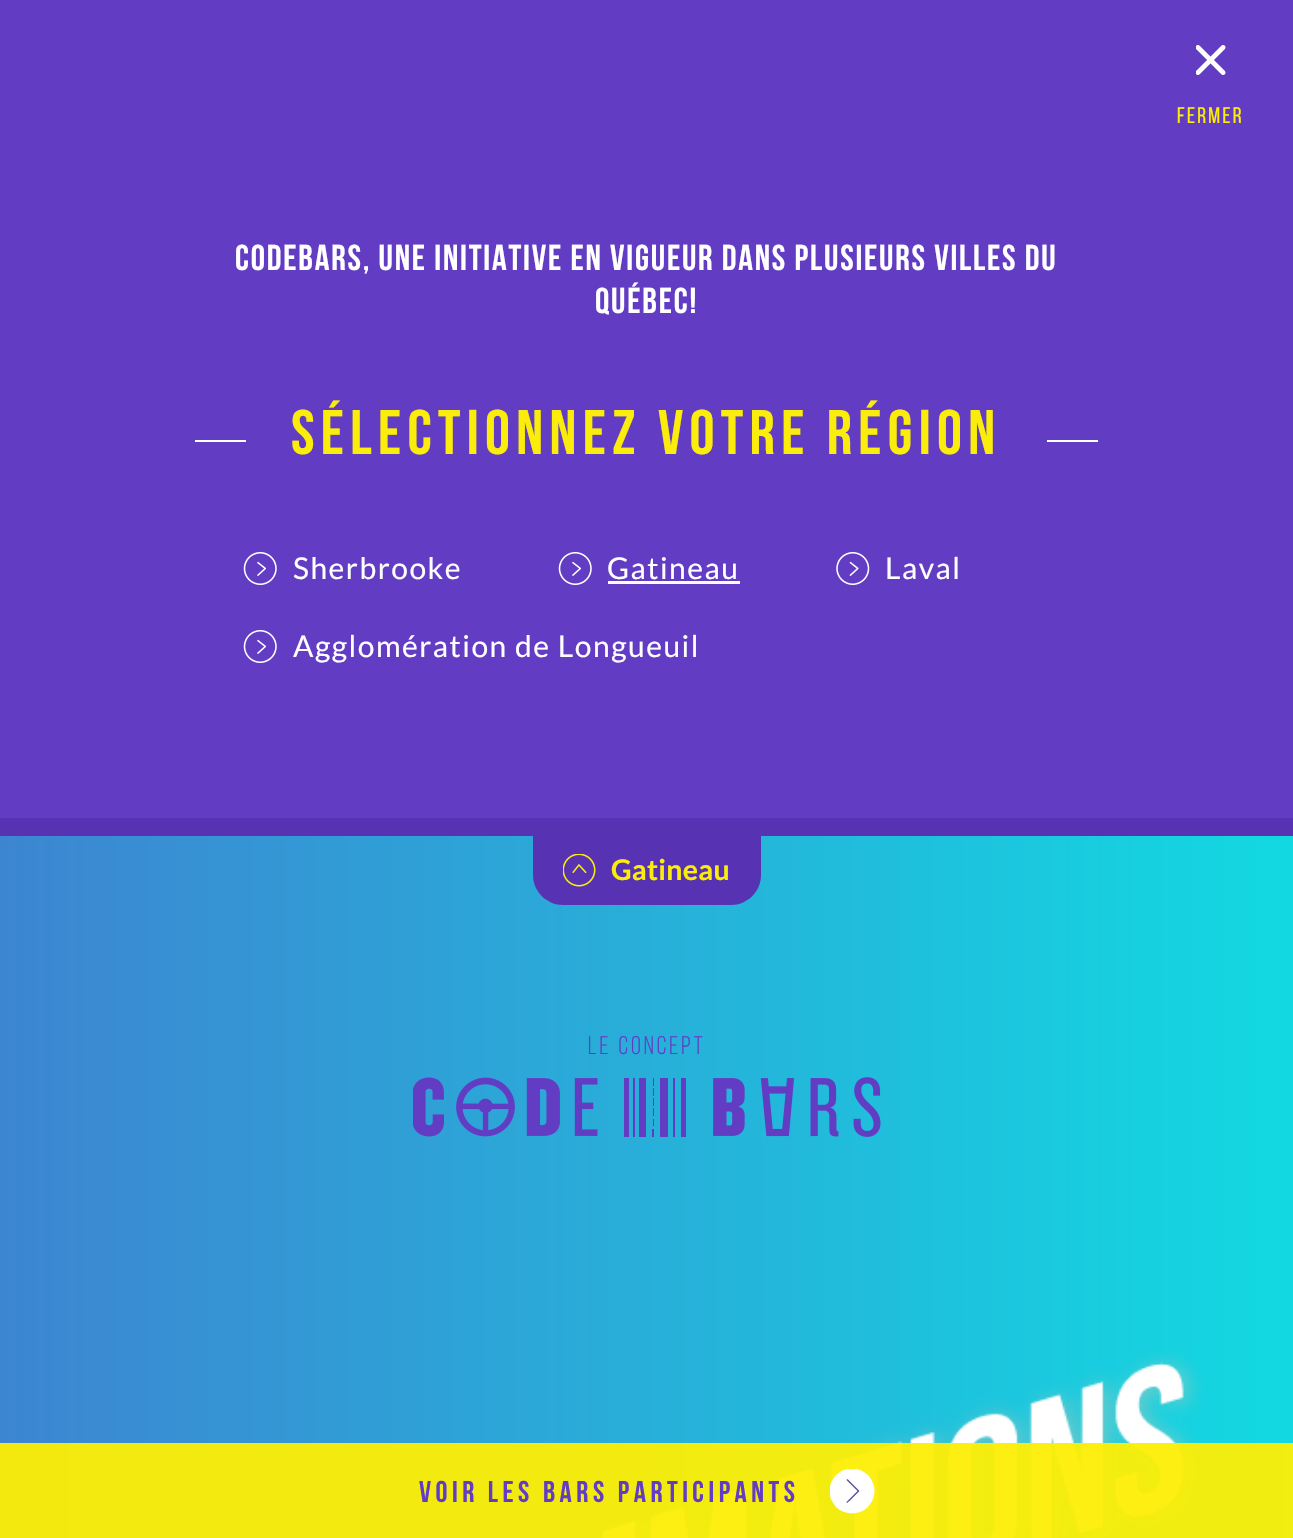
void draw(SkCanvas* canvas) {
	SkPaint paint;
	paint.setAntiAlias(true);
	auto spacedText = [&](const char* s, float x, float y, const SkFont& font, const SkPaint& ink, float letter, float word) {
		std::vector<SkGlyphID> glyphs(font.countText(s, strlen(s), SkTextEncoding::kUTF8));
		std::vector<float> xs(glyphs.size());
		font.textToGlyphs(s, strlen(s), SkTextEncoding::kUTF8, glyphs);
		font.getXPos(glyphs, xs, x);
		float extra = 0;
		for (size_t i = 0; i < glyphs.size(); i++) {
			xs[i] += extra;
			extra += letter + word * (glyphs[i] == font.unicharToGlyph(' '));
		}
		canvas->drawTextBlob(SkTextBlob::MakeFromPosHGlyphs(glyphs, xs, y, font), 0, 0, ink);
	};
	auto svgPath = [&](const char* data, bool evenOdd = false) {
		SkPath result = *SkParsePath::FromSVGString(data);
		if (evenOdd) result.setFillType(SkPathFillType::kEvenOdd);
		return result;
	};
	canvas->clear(0xffffffff);
	{
		const SkColor colors[] = {0xff3d85d1, 0xff12d9e1};
		const float stops[] = {0, 1};
		const SkPoint ends[] = {{0, 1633}, {1293, 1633}};
		paint.setShader(SkGradientShader::MakeLinear(ends, colors, stops, 2, SkTileMode::kClamp));
		paint.setAlpha(255);
	}
	canvas->drawRect(SkRect::MakeXYWH(0, 836, 1293, 702), paint);
	paint.setShader(nullptr);
	paint.setColor(0xff623dc3);
	canvas->drawRect(SkRect::MakeXYWH(0, 0, 1293, 818), paint);
	canvas->drawImageRect(SkImages::DeferredFromEncodedData(SkData::MakeFromFileName("img1.png")), SkRect::MakeXYWH(1196, 45, 30, 30), SkSamplingOptions());
	SkFont f1(fontMgr->matchFamilyStyle("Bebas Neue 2", SkFontStyle::Normal()), 22.5);
	f1.setSubpixel(true);
	paint.setColor(0xfffdee04);
	spacedText("FERMER", 1177, 123, f1, paint, 2.25, 0);
	SkFont f2(fontMgr->matchFamilyStyle("Bebas Neue", SkFontStyle::Bold()), 36);
	f2.setSubpixel(true);
	paint.setColor(0xffffffff);
	spacedText("CODEBARS, UNE INITIATIVE EN VIGUEUR DANS PLUSIEURS VILLES DU", 235, 270, f2, paint, 1.8, 0);
	spacedText("QUÉBEC!", 595, 313, f2, paint, 1.8, 0);
	canvas->drawRect(SkRect::MakeXYWH(195, 440, 903, 2), paint);
	paint.setColor(0xff623dc3);
	canvas->drawRect(SkRect::MakeXYWH(246, 440, 801, 2), paint);
	SkFont f3(fontMgr->matchFamilyStyle("Bebas Neue", SkFontStyle::Bold()), 63);
	f3.setSubpixel(true);
	paint.setColor(0xfffbed0b);
	spacedText("SÉLECTIONNEZ VOTRE RÉGION", 291, 454, f3, paint, 6.3, 0);
	canvas->drawImageRect(SkImages::DeferredFromEncodedData(SkData::MakeFromFileName("img2.png")), SkRect::MakeXYWH(243, 552, 34, 33), SkSamplingOptions());
	SkFont f4(fontMgr->matchFamilyStyle("Lato", SkFontStyle::Normal()), 30);
	f4.setSubpixel(true);
	paint.setColor(0xffffffff);
	spacedText("Sherbrooke", 293, 579, f4, paint, 1.5, 0);
	canvas->drawImageRect(SkImages::DeferredFromEncodedData(SkData::MakeFromFileName("img2.png")), SkRect::MakeXYWH(558, 552, 34, 33), SkSamplingOptions());
	spacedText("Gatineau", 607, 579, f4, paint, 1.5, 0);
	canvas->drawRect(SkRect::MakeXYWH(608, 581, 132, 3), paint);
	canvas->drawImageRect(SkImages::DeferredFromEncodedData(SkData::MakeFromFileName("img3.png")), SkRect::MakeXYWH(836, 552, 34, 33), SkSamplingOptions());
	spacedText("Laval", 885, 579, f4, paint, 1.5, 0);
	canvas->drawImageRect(SkImages::DeferredFromEncodedData(SkData::MakeFromFileName("img2.png")), SkRect::MakeXYWH(243, 630, 34, 33), SkSamplingOptions());
	spacedText("Agglomération de Longueuil", 293, 657, f4, paint, 1.5, 0);
	paint.setColor(0xff5733b3);
	canvas->drawRect(SkRect::MakeXYWH(0, 818, 1293, 18), paint);
	canvas->drawPath(svgPath("M533 836H761V875C761 891.5 747.5 905 731 905H563C546.5 905 533 891.5 533 875Z"), paint);
	canvas->drawImageRect(SkImages::DeferredFromEncodedData(SkData::MakeFromFileName("img4.png")), SkRect::MakeXYWH(563, 854, 33, 33), SkSamplingOptions());
	SkFont f5(fontMgr->matchFamilyStyle("Lato", SkFontStyle::Bold()), 28.5);
	f5.setSubpixel(true);
	paint.setColor(0xfffbed0b);
	spacedText("Gatineau", 611, 880, f5, paint, 0.25, 0);
	SkFont f6(fontMgr->matchFamilyStyle("Bebas Neue", SkFontStyle::Normal()), 25.5);
	f6.setSubpixel(true);
	paint.setColor(0xff623dc3);
	spacedText("LE CONCEPT", 588, 1054, f6, paint, 3, 0);
	canvas->drawImageRect(SkImages::DeferredFromEncodedData(SkData::MakeFromFileName("img5.png")), SkRect::MakeXYWH(413, 1077, 468, 60), SkSamplingOptions());
	canvas->drawImageRect(SkImages::DeferredFromEncodedData(SkData::MakeFromFileName("img6.png")), SkRect::MakeXYWH(547, 1352, 656, 186), SkSamplingOptions());
	paint.setColor(0xf2fdee04);
	canvas->drawRect(SkRect::MakeXYWH(0, 1443, 1293, 95), paint);
	SkFont f7(fontMgr->matchFamilyStyle("Bebas Neue", SkFontStyle::Bold()), 30);
	f7.setSubpixel(true);
	paint.setColor(0xff623dc3);
	spacedText("VOIR LES BARS PARTICIPANTS", 419, 1502, f7, paint, 4.5, 0);
	canvas->save();
	canvas->clipRect(SkRect::MakeXYWH(830, 1469, 45, 45));
	paint.setColor(0xffffffff);
	canvas->drawCircle(852, 1491, 22.5, paint);
	canvas->restore();
	paint.setColor(0xff604f9d);
	canvas->drawPath(svgPath("M848 1479.5C847.5 1479 846.5 1479.5 846.5 1480L857.5 1491L846.5 1502C846.5 1504 848 1502 849.5 1501L857 1493.5C860 1490.5 860 1491.5 857 1488.5Z"), paint);
}
